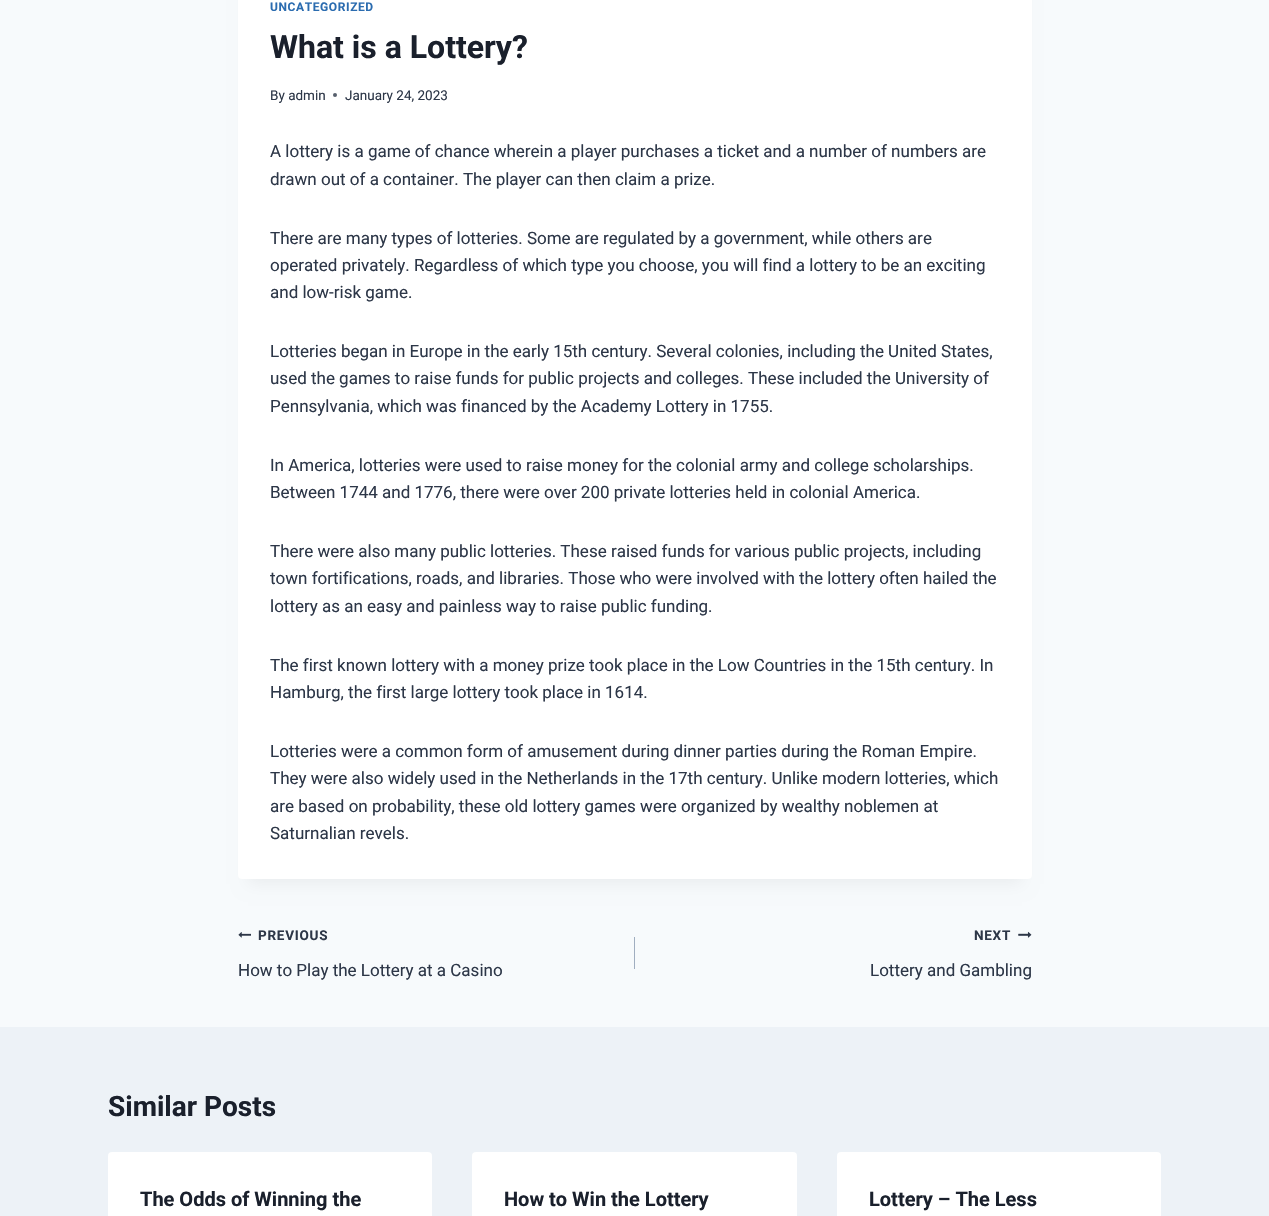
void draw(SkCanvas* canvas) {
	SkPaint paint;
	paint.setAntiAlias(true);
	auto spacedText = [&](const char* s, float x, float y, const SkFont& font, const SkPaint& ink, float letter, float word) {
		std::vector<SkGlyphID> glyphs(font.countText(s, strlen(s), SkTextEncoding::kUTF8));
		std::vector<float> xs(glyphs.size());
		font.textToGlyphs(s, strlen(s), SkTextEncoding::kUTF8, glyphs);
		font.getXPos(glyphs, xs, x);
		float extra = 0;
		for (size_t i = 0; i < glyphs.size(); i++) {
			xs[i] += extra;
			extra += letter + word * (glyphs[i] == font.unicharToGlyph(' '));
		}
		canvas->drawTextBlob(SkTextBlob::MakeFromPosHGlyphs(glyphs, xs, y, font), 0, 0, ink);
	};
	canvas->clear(0xfff7fafc);
	paint.setColor(0x0d000000);
	paint.setMaskFilter(SkMaskFilter::MakeBlur(kNormal_SkBlurStyle, 7.5));
	canvas->drawRect(SkRect::MakeXYWH(248, -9, 774, 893), paint);
	paint.setMaskFilter(nullptr);
	paint.setColor(0xffffffff);
	canvas->drawRoundRect(SkRect::MakeXYWH(238, -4, 794, 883), 4, 4, paint);
	SkFont f1(fontMgr->matchFamilyStyle("Roboto", SkFontStyle::Bold()), 12);
	f1.setSubpixel(true);
	paint.setColor(0xff2b6cb0);
	spacedText("UNCATEGORIZED", 270, 11, f1, paint, 0.6, 0);
	SkFont f2(fontMgr->matchFamilyStyle("Roboto", SkFontStyle::Bold()), 32);
	f2.setSubpixel(true);
	paint.setColor(0xff1a202c);
	canvas->drawString("What is a Lottery?", 270, 58, f2, paint);
	SkFont f3(fontMgr->matchFamilyStyle("Roboto", SkFontStyle::Normal()), 13.5);
	f3.setSubpixel(true);
	paint.setColor(0xff2d3748);
	canvas->drawString("By admin", 270, 100, f3, paint);
	paint.setColor(0xff575f6d);
	canvas->drawCircle(335, 95, 2, paint);
	paint.setColor(0xff2d3748);
	canvas->drawString("January 24, 2023", 345, 100, f3, paint);
	SkFont f4(fontMgr->matchFamilyStyle("Roboto", SkFontStyle::Normal()), 17);
	f4.setSubpixel(true);
	canvas->drawString("A lottery is a game of chance wherein a player purchases a ticket and a number of numbers are", 270, 157, f4, paint);
	canvas->drawString("drawn out of a container. The player can then claim a prize.", 270, 185, f4, paint);
	canvas->drawString("There are many types of lotteries. Some are regulated by a government, while others are", 270, 244, f4, paint);
	canvas->drawString("operated privately. Regardless of which type you choose, you will find a lottery to be an exciting", 270, 271, f4, paint);
	canvas->drawString("and low-risk game.", 270, 298, f4, paint);
	canvas->drawString("Lotteries began in Europe in the early 15th century. Several colonies, including the United States,", 270, 357, f4, paint);
	canvas->drawString("used the games to raise funds for public projects and colleges. These included the University of", 270, 384, f4, paint);
	canvas->drawString("Pennsylvania, which was financed by the Academy Lottery in 1755.", 270, 412, f4, paint);
	canvas->drawString("In America, lotteries were used to raise money for the colonial army and college scholarships.", 270, 471, f4, paint);
	canvas->drawString("Between 1744 and 1776, there were over 200 private lotteries held in colonial America.", 270, 498, f4, paint);
	canvas->drawString("There were also many public lotteries. These raised funds for various public projects, including", 270, 557, f4, paint);
	canvas->drawString("town fortifications, roads, and libraries. Those who were involved with the lottery often hailed the", 270, 584, f4, paint);
	canvas->drawString("lottery as an easy and painless way to raise public funding.", 270, 612, f4, paint);
	canvas->drawString("The first known lottery with a money prize took place in the Low Countries in the 15th century. In", 270, 671, f4, paint);
	canvas->drawString("Hamburg, the first large lottery took place in 1614.", 270, 698, f4, paint);
	canvas->drawString("Lotteries were a common form of amusement during dinner parties during the Roman Empire.", 270, 757, f4, paint);
	canvas->drawString("They were also widely used in the Netherlands in the 17th century. Unlike modern lotteries, which", 270, 784, f4, paint);
	canvas->drawString("are based on probability, these old lottery games were organized by wealthy noblemen at", 270, 812, f4, paint);
	canvas->drawString("Saturnalian revels.", 270, 839, f4, paint);
	canvas->drawImageRect(SkImages::DeferredFromEncodedData(SkData::MakeFromFileName("img1.png")), SkRect::MakeXYWH(238, 932, 13, 6), SkSamplingOptions());
	SkFont f5(fontMgr->matchFamilyStyle("Roboto", SkFontStyle::Bold()), 13.5);
	f5.setSubpixel(true);
	spacedText("PREVIOUS", 258, 940, f5, paint, 0.75, 0);
	canvas->drawString("How to Play the Lottery at a Casino", 238, 976, f4, paint);
	paint.setColor(0xffa0aec0);
	canvas->drawRect(SkRect::MakeXYWH(634, 937, 1, 32), paint);
	paint.setColor(0xff2d3748);
	spacedText("NEXT", 974, 940, f5, paint, 0.75, 0);
	canvas->drawImageRect(SkImages::DeferredFromEncodedData(SkData::MakeFromFileName("img2.png")), SkRect::MakeXYWH(1018, 931, 14, 7), SkSamplingOptions());
	canvas->drawString("Lottery and Gambling", 870, 976, f4, paint);
	paint.setColor(0xffedf2f7);
	canvas->drawRect(SkRect::MakeXYWH(0, 1027, 1269, 189), paint);
	SkFont f6(fontMgr->matchFamilyStyle("Roboto", SkFontStyle::Bold()), 28);
	f6.setSubpixel(true);
	paint.setColor(0xff1a202c);
	canvas->drawString("Similar Posts", 108, 1116, f6, paint);
	paint.setColor(0xffffffff);
	canvas->drawRoundRect(SkRect::MakeXYWH(108, 1152, 324, 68), 4, 4, paint);
	SkFont f7(fontMgr->matchFamilyStyle("Roboto", SkFontStyle::Bold()), 20);
	f7.setSubpixel(true);
	paint.setColor(0xff1a202c);
	canvas->drawString("The Odds of Winning the", 140, 1206, f7, paint);
	paint.setColor(0xffffffff);
	canvas->drawRoundRect(SkRect::MakeXYWH(472, 1152, 325, 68), 4, 4, paint);
	paint.setColor(0xff1a202c);
	canvas->drawString("How to Win the Lottery", 504, 1206, f7, paint);
	paint.setColor(0xffffffff);
	canvas->drawRoundRect(SkRect::MakeXYWH(837, 1152, 324, 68), 4, 4, paint);
	paint.setColor(0xff1a202c);
	canvas->drawString("Lottery – The Less", 869, 1206, f7, paint);
}
